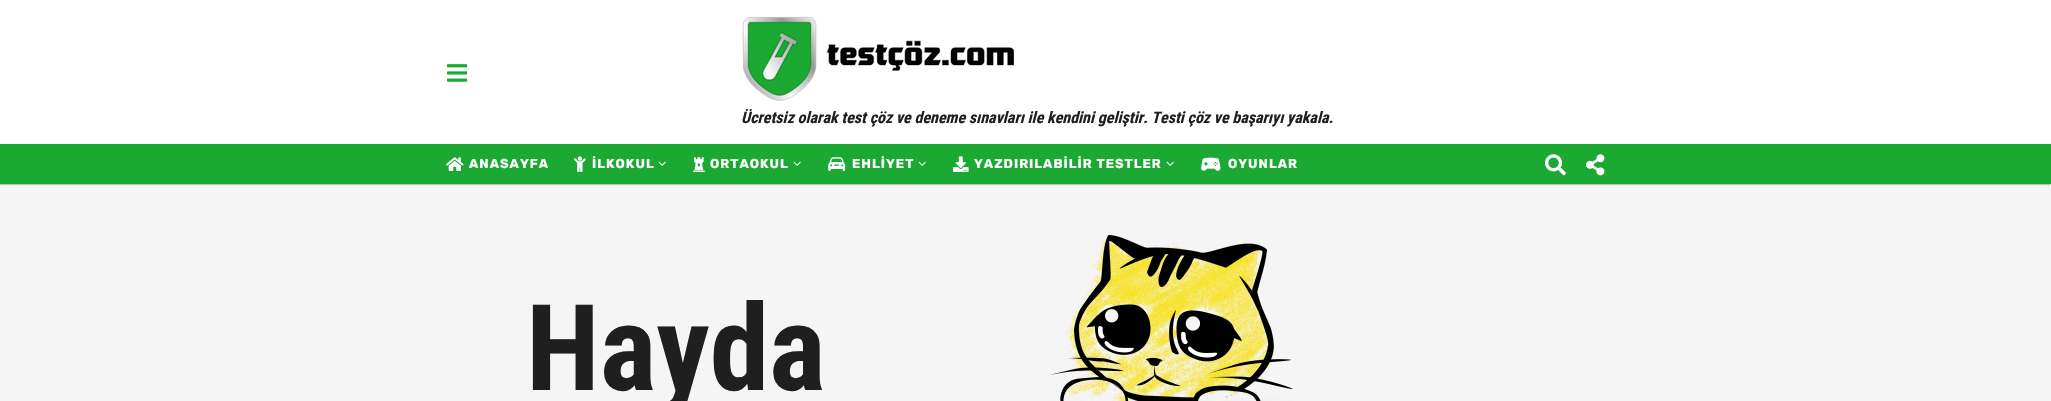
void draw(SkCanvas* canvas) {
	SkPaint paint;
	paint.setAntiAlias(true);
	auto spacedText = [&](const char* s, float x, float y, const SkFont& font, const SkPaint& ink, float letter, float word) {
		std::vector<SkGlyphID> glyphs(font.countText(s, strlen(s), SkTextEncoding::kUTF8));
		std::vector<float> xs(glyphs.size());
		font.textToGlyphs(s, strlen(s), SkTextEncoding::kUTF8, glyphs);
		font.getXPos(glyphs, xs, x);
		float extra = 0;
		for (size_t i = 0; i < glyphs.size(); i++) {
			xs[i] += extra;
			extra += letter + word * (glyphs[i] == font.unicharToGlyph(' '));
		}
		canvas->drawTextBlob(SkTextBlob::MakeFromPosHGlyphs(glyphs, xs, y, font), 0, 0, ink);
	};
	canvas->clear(0xfff5f5f5);
	paint.setColor(0x452a2a2a);
	paint.setMaskFilter(SkMaskFilter::MakeBlur(kNormal_SkBlurStyle, 0.5));
	canvas->drawRect(SkRect::MakeXYWH(-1, 145, 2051, 40), paint);
	paint.setMaskFilter(nullptr);
	paint.setColor(0xffffffff);
	canvas->drawRect(SkRect::MakeXYWH(0, 0, 2051, 144), paint);
	canvas->drawImageRect(SkImages::DeferredFromEncodedData(SkData::MakeFromFileName("img1.png")), SkRect::MakeXYWH(447, 64, 21, 18), SkSamplingOptions());
	canvas->drawImageRect(SkImages::DeferredFromEncodedData(SkData::MakeFromFileName("img2.png")), SkRect::MakeXYWH(742, 16, 272, 85), SkSamplingOptions());
	SkFont f1(fontMgr->matchFamilyStyle("Roboto Condensed", SkFontStyle::BoldItalic()), 16);
	f1.setSubpixel(true);
	paint.setColor(0xff1f1f1f);
	canvas->drawString("Ücretsiz olarak test çöz ve deneme sınavları ile kendini geliştir. Testi çöz ve başarıyı yakala.", 741, 123, f1, paint);
	paint.setColor(0xff1ca933);
	canvas->drawRect(SkRect::MakeXYWH(0, 144, 2051, 40), paint);
	canvas->drawImageRect(SkImages::DeferredFromEncodedData(SkData::MakeFromFileName("img3.png")), SkRect::MakeXYWH(446, 157, 18, 14), SkSamplingOptions());
	SkFont f2(fontMgr->matchFamilyStyle("Rubik", SkFontStyle::Bold()), 13);
	f2.setSubpixel(true);
	paint.setColor(0xffffffff);
	spacedText("ANASAYFA", 469, 168, f2, paint, 1, 0);
	canvas->drawImageRect(SkImages::DeferredFromEncodedData(SkData::MakeFromFileName("img4.png")), SkRect::MakeXYWH(574, 156, 12, 16), SkSamplingOptions());
	spacedText("İLKOKUL", 592, 168, f2, paint, 1, 0);
	canvas->drawImageRect(SkImages::DeferredFromEncodedData(SkData::MakeFromFileName("img5.png")), SkRect::MakeXYWH(658, 161, 8, 5), SkSamplingOptions());
	canvas->drawImageRect(SkImages::DeferredFromEncodedData(SkData::MakeFromFileName("img6.png")), SkRect::MakeXYWH(693, 157, 12, 15), SkSamplingOptions());
	spacedText("ORTAOKUL", 710, 168, f2, paint, 1, 0);
	canvas->drawImageRect(SkImages::DeferredFromEncodedData(SkData::MakeFromFileName("img5.png")), SkRect::MakeXYWH(793, 161, 8, 5), SkSamplingOptions());
	canvas->drawImageRect(SkImages::DeferredFromEncodedData(SkData::MakeFromFileName("img7.png")), SkRect::MakeXYWH(828, 157, 18, 14), SkSamplingOptions());
	spacedText("EHLİYET", 852, 168, f2, paint, 1, 0);
	canvas->drawImageRect(SkImages::DeferredFromEncodedData(SkData::MakeFromFileName("img5.png")), SkRect::MakeXYWH(918, 161, 8, 5), SkSamplingOptions());
	canvas->drawImageRect(SkImages::DeferredFromEncodedData(SkData::MakeFromFileName("img8.png")), SkRect::MakeXYWH(953, 156, 16, 16), SkSamplingOptions());
	spacedText("YAZDIRILABİLİR TESTLER", 974, 168, f2, paint, 1, 0);
	canvas->drawImageRect(SkImages::DeferredFromEncodedData(SkData::MakeFromFileName("img5.png")), SkRect::MakeXYWH(1166, 161, 8, 5), SkSamplingOptions());
	canvas->drawImageRect(SkImages::DeferredFromEncodedData(SkData::MakeFromFileName("img9.png")), SkRect::MakeXYWH(1201, 157, 20, 14), SkSamplingOptions());
	spacedText("OYUNLAR", 1228, 168, f2, paint, 1, 0);
	canvas->drawImageRect(SkImages::DeferredFromEncodedData(SkData::MakeFromFileName("img10.png")), SkRect::MakeXYWH(1545, 154, 21, 22), SkSamplingOptions());
	canvas->drawImageRect(SkImages::DeferredFromEncodedData(SkData::MakeFromFileName("img11.png")), SkRect::MakeXYWH(1586, 154, 19, 22), SkSamplingOptions());
	SkFont f3(fontMgr->matchFamilyStyle("Roboto Condensed", SkFontStyle::Bold()), 120);
	f3.setSubpixel(true);
	paint.setColor(0xff1f1f1f);
	canvas->drawString("Hayda", 526, 390, f3, paint);
	canvas->drawImageRect(SkImages::DeferredFromEncodedData(SkData::MakeFromFileName("img12.png")), SkRect::MakeXYWH(1050, 234, 243, 167), SkSamplingOptions());
}
